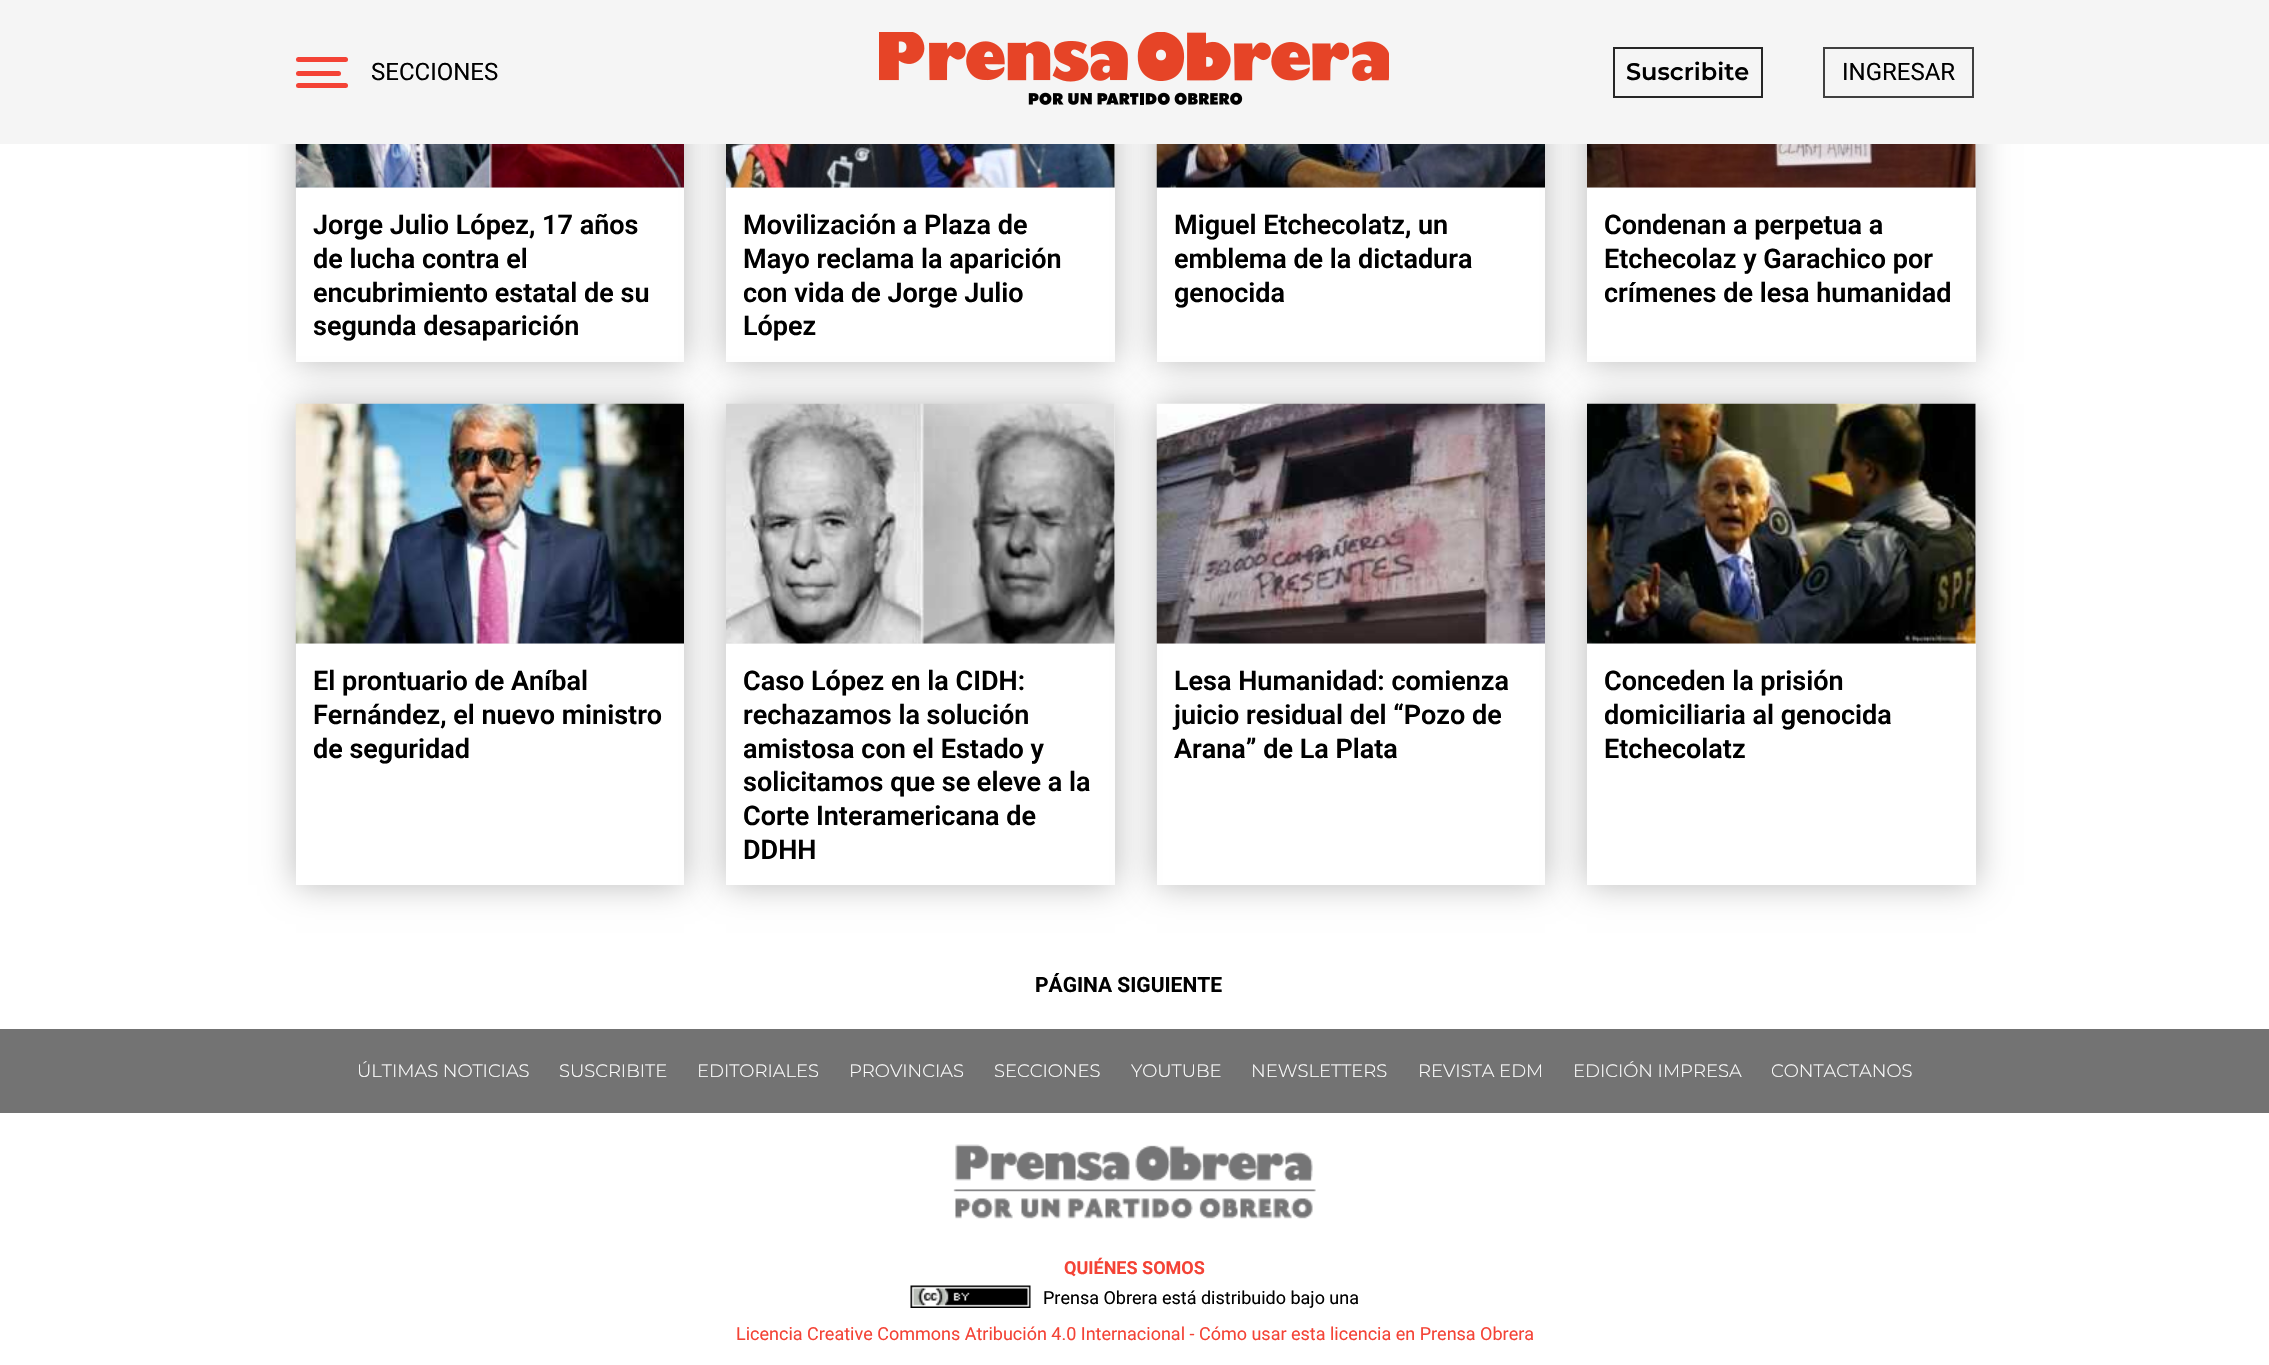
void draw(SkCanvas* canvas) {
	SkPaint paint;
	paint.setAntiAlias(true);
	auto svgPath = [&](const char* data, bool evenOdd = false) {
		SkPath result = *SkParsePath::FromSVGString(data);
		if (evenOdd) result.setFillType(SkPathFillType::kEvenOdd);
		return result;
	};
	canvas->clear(0xffffffff);
	paint.setColor(0x45000000);
	paint.setMaskFilter(SkMaskFilter::MakeBlur(kNormal_SkBlurStyle, 16));
	canvas->drawRect(SkRect::MakeXYWH(296, -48, 388, 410), paint);
	paint.setMaskFilter(nullptr);
	paint.setColor(0xffffffff);
	canvas->drawRect(SkRect::MakeXYWH(296, 188, 388, 174), paint);
	paint.setColor(0x45000000);
	paint.setMaskFilter(SkMaskFilter::MakeBlur(kNormal_SkBlurStyle, 16));
	canvas->drawRect(SkRect::MakeXYWH(726, -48, 389, 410), paint);
	paint.setMaskFilter(nullptr);
	paint.setColor(0xffffffff);
	canvas->drawRect(SkRect::MakeXYWH(726, 188, 389, 174), paint);
	paint.setColor(0x45000000);
	paint.setMaskFilter(SkMaskFilter::MakeBlur(kNormal_SkBlurStyle, 16));
	canvas->drawRect(SkRect::MakeXYWH(1157, -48, 388, 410), paint);
	paint.setMaskFilter(nullptr);
	paint.setColor(0xffffffff);
	canvas->drawRect(SkRect::MakeXYWH(1157, 188, 388, 174), paint);
	paint.setColor(0x45000000);
	paint.setMaskFilter(SkMaskFilter::MakeBlur(kNormal_SkBlurStyle, 16));
	canvas->drawRect(SkRect::MakeXYWH(1587, -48, 389, 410), paint);
	paint.setMaskFilter(nullptr);
	paint.setColor(0xfff5f5f5);
	canvas->drawRect(SkRect::MakeXYWH(0, 0, 2269, 144), paint);
	paint.setColor(0xfff44336);
	canvas->drawRoundRect(SkRect::MakeXYWH(296, 57, 52, 5), 2.5, 2.5, paint);
	canvas->drawRoundRect(SkRect::MakeXYWH(296, 71, 45, 5), 2.5, 2.5, paint);
	canvas->drawRoundRect(SkRect::MakeXYWH(296, 83, 52, 5), 2.5, 2.5, paint);
	SkFont f1(fontMgr->matchFamilyStyle("Roboto", SkFontStyle::Normal()), 24);
	f1.setSubpixel(true);
	paint.setColor(0xff000000);
	canvas->drawString("SECCIONES", 371, 80, f1, paint);
	canvas->drawImageRect(SkImages::DeferredFromEncodedData(SkData::MakeFromFileName("img1.png")), SkRect::MakeXYWH(879, 32, 510, 73), SkSamplingOptions());
	paint.setStroke(true);
	paint.setStrokeWidth(2);
	paint.setColor(0xff262626);
	canvas->drawRect(SkRect::MakeXYWH(1614, 48, 148, 49), paint);
	SkFont f2(fontMgr->matchFamilyStyle("Montserrat", SkFontStyle(600, SkFontStyle::kNormal_Width, SkFontStyle::kUpright_Slant)), 24);
	f2.setSubpixel(true);
	paint.setStroke(false);
	paint.setColor(0xff000000);
	canvas->drawString("Suscribite", 1626, 80, f2, paint);
	paint.setStroke(true);
	paint.setColor(0xff404040);
	canvas->drawRect(SkRect::MakeXYWH(1824, 48, 149, 49), paint);
	paint.setStroke(false);
	paint.setColor(0xff000000);
	canvas->drawString("INGRESAR", 1842, 80, f1, paint);
	paint.setColor(0xfff3f3f3);
	canvas->drawRect(SkRect::MakeXYWH(296, 187, 388, 1), paint);
	canvas->drawImageRect(SkImages::DeferredFromEncodedData(SkData::MakeFromFileName("img2.png")), SkRect::MakeXYWH(295, 144, 389, 44), SkSamplingOptions());
	SkFont f3(fontMgr->matchFamilyStyle("Roboto", SkFontStyle(600, SkFontStyle::kNormal_Width, SkFontStyle::kUpright_Slant)), 27);
	f3.setSubpixel(true);
	paint.setColor(0xff000000);
	canvas->drawString("Jorge Julio López, 17 años", 313, 234, f3, paint);
	canvas->drawString("de lucha contra el", 313, 268, f3, paint);
	canvas->drawString("encubrimiento estatal de su", 313, 302, f3, paint);
	canvas->drawString("segunda desaparición", 313, 335, f3, paint);
	paint.setColor(0xfff3f3f3);
	canvas->drawRect(SkRect::MakeXYWH(726, 144, 389, 44), paint);
	canvas->drawImageRect(SkImages::DeferredFromEncodedData(SkData::MakeFromFileName("img3.png")), SkRect::MakeXYWH(726, 144, 389, 44), SkSamplingOptions());
	paint.setColor(0xff000000);
	canvas->drawString("Movilización a Plaza de", 743, 234, f3, paint);
	canvas->drawString("Mayo reclama la aparición", 743, 268, f3, paint);
	canvas->drawString("con vida de Jorge Julio", 743, 302, f3, paint);
	canvas->drawString("López", 743, 335, f3, paint);
	paint.setColor(0xfff3f3f3);
	canvas->drawRect(SkRect::MakeXYWH(1157, 187, 388, 1), paint);
	canvas->drawImageRect(SkImages::DeferredFromEncodedData(SkData::MakeFromFileName("img4.png")), SkRect::MakeXYWH(1156, 144, 389, 44), SkSamplingOptions());
	paint.setColor(0xff000000);
	canvas->drawString("Miguel Etchecolatz, un", 1174, 234, f3, paint);
	canvas->drawString("emblema de la dictadura", 1174, 268, f3, paint);
	canvas->drawString("genocida", 1174, 302, f3, paint);
	paint.setColor(0xffffffff);
	canvas->drawRect(SkRect::MakeXYWH(1587, 188, 389, 174), paint);
	paint.setColor(0xfff3f3f3);
	canvas->drawRect(SkRect::MakeXYWH(1587, 144, 389, 44), paint);
	canvas->drawImageRect(SkImages::DeferredFromEncodedData(SkData::MakeFromFileName("img5.png")), SkRect::MakeXYWH(1587, 144, 389, 44), SkSamplingOptions());
	paint.setColor(0xff000000);
	canvas->drawString("Condenan a perpetua a", 1604, 234, f3, paint);
	canvas->drawString("Etchecolaz y Garachico por", 1604, 268, f3, paint);
	canvas->drawString("crímenes de lesa humanidad", 1604, 302, f3, paint);
	canvas->save();
	canvas->clipPath(svgPath("M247 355H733V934H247ZM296 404H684V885H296Z", true), true);
	paint.setColor(0x45000000);
	paint.setMaskFilter(SkMaskFilter::MakeBlur(kNormal_SkBlurStyle, 16));
	canvas->drawRect(SkRect::MakeXYWH(296, 404, 388, 481), paint);
	paint.setMaskFilter(nullptr);
	canvas->restore();
	paint.setMaskFilter(SkMaskFilter::MakeBlur(kNormal_SkBlurStyle, 16));
	canvas->drawRect(SkRect::MakeXYWH(726, 404, 389, 481), paint);
	paint.setMaskFilter(nullptr);
	paint.setColor(0xfff3f3f3);
	canvas->drawRect(SkRect::MakeXYWH(296, 643, 388, 1), paint);
	canvas->drawImageRect(SkImages::DeferredFromEncodedData(SkData::MakeFromFileName("img6.png")), SkRect::MakeXYWH(295, 403, 389, 241), SkSamplingOptions());
	paint.setColor(0xff000000);
	canvas->drawString("El prontuario de Aníbal", 313, 690, f3, paint);
	canvas->drawString("Fernández, el nuevo ministro", 313, 724, f3, paint);
	canvas->drawString("de seguridad", 313, 758, f3, paint);
	paint.setColor(0xffffffff);
	canvas->drawRect(SkRect::MakeXYWH(726, 644, 389, 241), paint);
	canvas->save();
	canvas->clipPath(svgPath("M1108 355H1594V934H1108ZM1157 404H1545V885H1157Z", true), true);
	paint.setColor(0x45000000);
	paint.setMaskFilter(SkMaskFilter::MakeBlur(kNormal_SkBlurStyle, 16));
	canvas->drawRect(SkRect::MakeXYWH(1157, 404, 388, 481), paint);
	paint.setMaskFilter(nullptr);
	canvas->restore();
	paint.setColor(0xfff3f3f3);
	canvas->drawRect(SkRect::MakeXYWH(726, 404, 389, 240), paint);
	canvas->drawImageRect(SkImages::DeferredFromEncodedData(SkData::MakeFromFileName("img7.png")), SkRect::MakeXYWH(726, 403, 389, 241), SkSamplingOptions());
	paint.setColor(0xff000000);
	canvas->drawString("Caso López en la CIDH:", 743, 690, f3, paint);
	canvas->drawString("rechazamos la solución", 743, 724, f3, paint);
	canvas->drawString("amistosa con el Estado y", 743, 758, f3, paint);
	canvas->drawString("solicitamos que se eleve a la", 743, 791, f3, paint);
	canvas->drawString("Corte Interamericana de", 743, 825, f3, paint);
	canvas->drawString("DDHH", 743, 859, f3, paint);
	paint.setColor(0x45000000);
	paint.setMaskFilter(SkMaskFilter::MakeBlur(kNormal_SkBlurStyle, 16));
	canvas->drawRect(SkRect::MakeXYWH(1587, 404, 389, 481), paint);
	paint.setMaskFilter(nullptr);
	paint.setColor(0xfff3f3f3);
	canvas->drawRect(SkRect::MakeXYWH(1157, 643, 388, 1), paint);
	canvas->drawImageRect(SkImages::DeferredFromEncodedData(SkData::MakeFromFileName("img8.png")), SkRect::MakeXYWH(1156, 403, 389, 241), SkSamplingOptions());
	paint.setColor(0xff000000);
	canvas->drawString("Lesa Humanidad: comienza", 1174, 690, f3, paint);
	canvas->drawString("juicio residual del “Pozo de", 1174, 724, f3, paint);
	canvas->drawString("Arana” de La Plata", 1174, 758, f3, paint);
	paint.setColor(0xffffffff);
	canvas->drawRect(SkRect::MakeXYWH(1587, 644, 389, 241), paint);
	paint.setColor(0xfff3f3f3);
	canvas->drawRect(SkRect::MakeXYWH(1587, 404, 389, 240), paint);
	canvas->drawImageRect(SkImages::DeferredFromEncodedData(SkData::MakeFromFileName("img9.png")), SkRect::MakeXYWH(1587, 403, 389, 241), SkSamplingOptions());
	paint.setColor(0xff000000);
	canvas->drawString("Conceden la prisión", 1604, 690, f3, paint);
	canvas->drawString("domiciliaria al genocida", 1604, 724, f3, paint);
	canvas->drawString("Etchecolatz", 1604, 758, f3, paint);
	SkFont f4(fontMgr->matchFamilyStyle("Roboto", SkFontStyle::Bold()), 21);
	f4.setSubpixel(true);
	canvas->drawString("PÁGINA SIGUIENTE", 1035, 992, f4, paint);
	paint.setColor(0xff737373);
	canvas->drawRect(SkRect::MakeXYWH(0, 1029, 2269, 84), paint);
	SkFont f5(fontMgr->matchFamilyStyle("Montserrat", SkFontStyle(300, SkFontStyle::kNormal_Width, SkFontStyle::kUpright_Slant)), 18);
	f5.setSubpixel(true);
	paint.setColor(0xffffffff);
	canvas->drawString("ÚLTIMAS NOTICIAS", 357, 1077, f5, paint);
	canvas->drawString("SUSCRIBITE", 559, 1077, f5, paint);
	canvas->drawString("EDITORIALES", 697, 1077, f5, paint);
	canvas->drawString("PROVINCIAS", 849, 1077, f5, paint);
	canvas->drawString("SECCIONES", 994, 1077, f5, paint);
	canvas->drawString("YOUTUBE", 1131, 1077, f5, paint);
	canvas->drawString("NEWSLETTERS", 1251, 1077, f5, paint);
	canvas->drawString("REVISTA EDM", 1418, 1077, f5, paint);
	canvas->drawString("EDICIÓN IMPRESA", 1573, 1077, f5, paint);
	canvas->drawString("CONTACTANOS", 1771, 1077, f5, paint);
	canvas->drawImageRect(SkImages::DeferredFromEncodedData(SkData::MakeFromFileName("img10.png")), SkRect::MakeXYWH(953, 1144, 363, 75), SkSamplingOptions());
	SkFont f6(fontMgr->matchFamilyStyle("Roboto", SkFontStyle::Bold()), 18);
	f6.setSubpixel(true);
	paint.setColor(0xfff44336);
	canvas->drawString("QUIÉNES SOMOS", 1064, 1274, f6, paint);
	canvas->drawImageRect(SkImages::DeferredFromEncodedData(SkData::MakeFromFileName("img11.png")), SkRect::MakeXYWH(910, 1285, 121, 23), SkSamplingOptions());
	SkFont f7(fontMgr->matchFamilyStyle("Roboto", SkFontStyle::Normal()), 18);
	f7.setSubpixel(true);
	paint.setColor(0xff000000);
	canvas->drawString("Prensa Obrera está distribuido bajo una", 1043, 1304, f7, paint);
	paint.setColor(0xfff44336);
	canvas->drawString("Licencia Creative Commons Atribución 4.0 Internacional - Cómo usar esta licencia en Prensa Obrera", 736, 1340, f7, paint);
}
